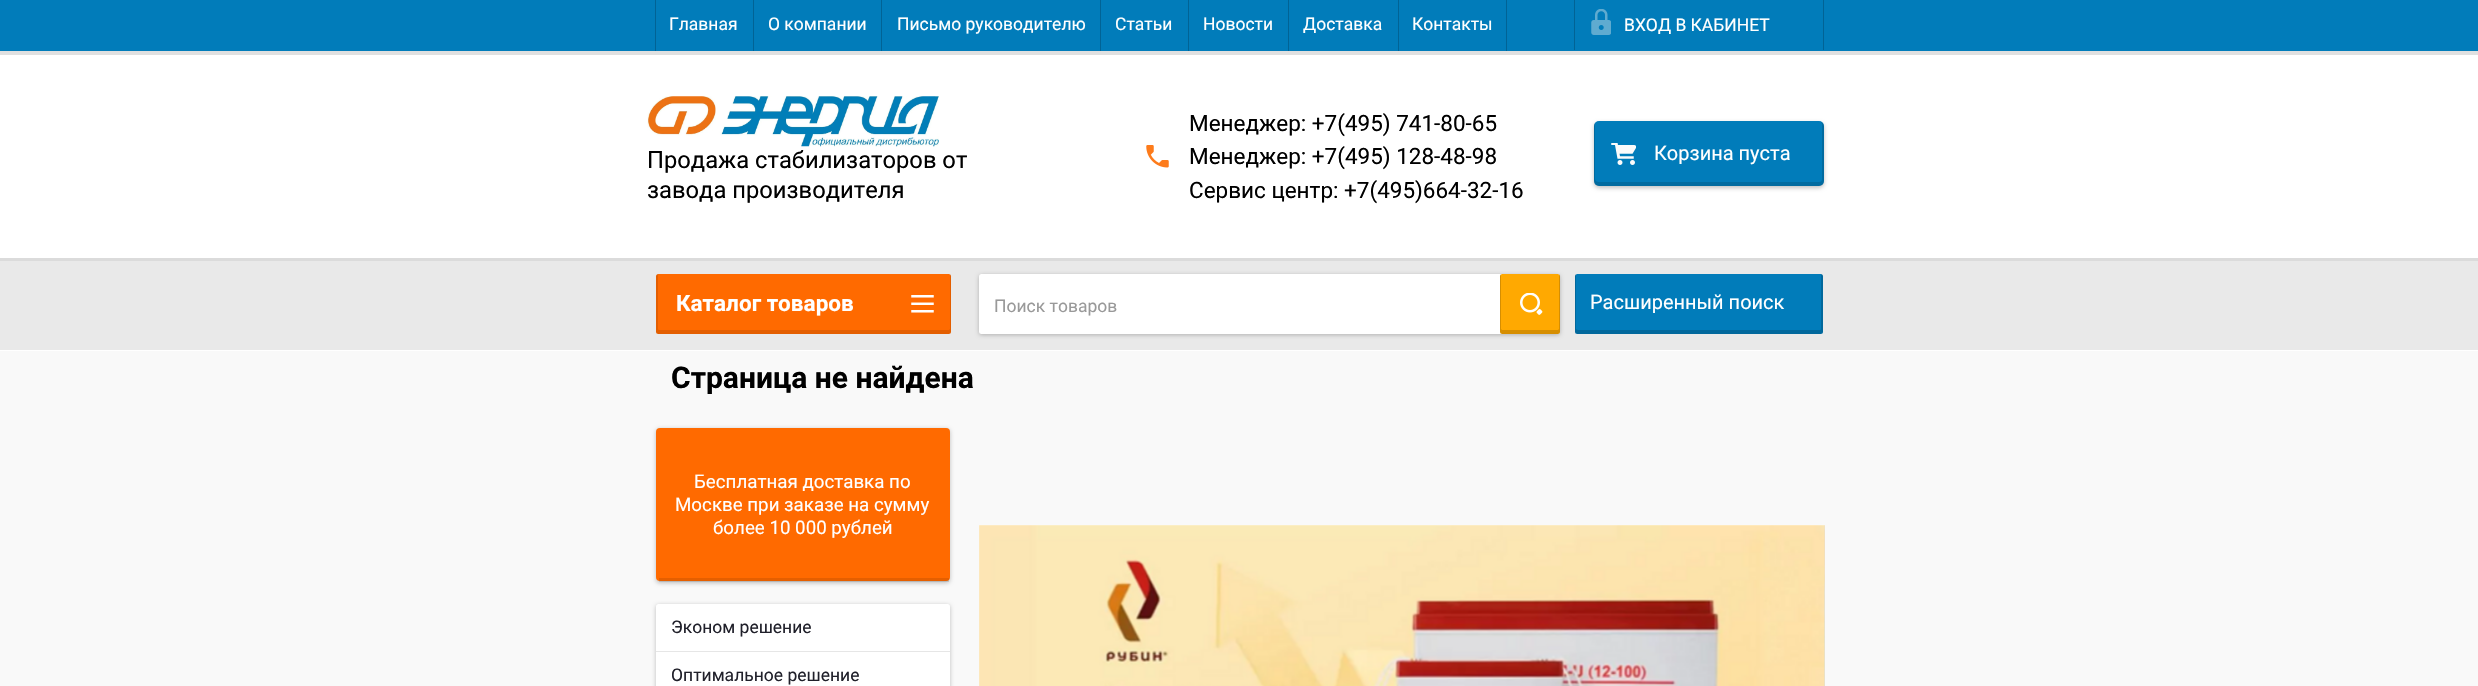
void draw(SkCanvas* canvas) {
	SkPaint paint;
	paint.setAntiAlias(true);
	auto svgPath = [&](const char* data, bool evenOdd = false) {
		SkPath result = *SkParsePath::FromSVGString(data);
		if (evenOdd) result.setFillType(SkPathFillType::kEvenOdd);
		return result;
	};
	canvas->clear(0xfff9f9f9);
	paint.setColor(0xffffffff);
	canvas->drawRect(SkRect::MakeXYWH(0, 55, 2478, 203), paint);
	paint.setColor(0xffe0e0e0);
	canvas->drawPath(svgPath("M0 51V55H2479V4V51Z"), paint);
	paint.setColor(0xff017cba);
	canvas->drawRect(SkRect::MakeXYWH(0, 0, 2478, 51), paint);
	paint.setColor(0xff016395);
	canvas->drawRect(SkRect::MakeXYWH(655, 0, 1, 51), paint);
	SkFont f1(fontMgr->matchFamilyStyle("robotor", SkFontStyle::Normal()), 17.5);
	f1.setSubpixel(true);
	paint.setColor(0xffffffff);
	canvas->drawString("Главная", 669, 30, f1, paint);
	paint.setColor(0xff016395);
	canvas->drawRect(SkRect::MakeXYWH(753, 0, 1, 51), paint);
	paint.setColor(0xffffffff);
	canvas->drawString("О компании", 768, 30, f1, paint);
	paint.setColor(0xff016395);
	canvas->drawRect(SkRect::MakeXYWH(881, 0, 1, 51), paint);
	paint.setColor(0xffffffff);
	canvas->drawString("Письмо руководителю", 897, 30, f1, paint);
	paint.setColor(0xff016395);
	canvas->drawRect(SkRect::MakeXYWH(1100, 0, 1, 51), paint);
	paint.setColor(0xffffffff);
	canvas->drawString("Статьи", 1115, 30, f1, paint);
	paint.setColor(0xff016395);
	canvas->drawRect(SkRect::MakeXYWH(1188, 0, 1, 51), paint);
	paint.setColor(0xffffffff);
	canvas->drawString("Новости", 1203, 30, f1, paint);
	paint.setColor(0xff016395);
	canvas->drawRect(SkRect::MakeXYWH(1288, 0, 1, 51), paint);
	paint.setColor(0xffffffff);
	canvas->drawString("Доставка", 1303, 30, f1, paint);
	paint.setColor(0xff016395);
	canvas->drawRect(SkRect::MakeXYWH(1398, 0, 1, 51), paint);
	paint.setColor(0xffffffff);
	canvas->drawString("Контакты", 1412, 30, f1, paint);
	paint.setColor(0xff016395);
	canvas->drawRect(SkRect::MakeXYWH(1506, 0, 1, 51), paint);
	canvas->drawRect(SkRect::MakeXYWH(1574, 0, 1, 50), paint);
	canvas->drawImageRect(SkImages::DeferredFromEncodedData(SkData::MakeFromFileName("img1.png")), SkRect::MakeXYWH(1591, 9, 20, 26), SkSamplingOptions());
	paint.setColor(0xffffffff);
	canvas->drawString("ВХОД В КАБИНЕТ", 1624, 31, f1, paint);
	paint.setColor(0xff016395);
	canvas->drawRect(SkRect::MakeXYWH(1823, 0, 1, 50), paint);
	canvas->drawImageRect(SkImages::DeferredFromEncodedData(SkData::MakeFromFileName("img2.png")), SkRect::MakeXYWH(647, 96, 292, 51), SkSamplingOptions());
	SkFont f2(fontMgr->matchFamilyStyle("robotor", SkFontStyle::Normal()), 23.75);
	f2.setSubpixel(true);
	paint.setColor(0xff000000);
	canvas->drawString("Продажа стабилизаторов от", 647, 168, f2, paint);
	canvas->drawString("завода производителя", 647, 198, f2, paint);
	SkFont f3(fontMgr->matchFamilyStyle("robotor", SkFontStyle::Normal()), 22.5);
	f3.setSubpixel(true);
	canvas->drawString("Менеджер: +7(495) 741-80-65", 1189, 131, f3, paint);
	canvas->drawImageRect(SkImages::DeferredFromEncodedData(SkData::MakeFromFileName("img3.png")), SkRect::MakeXYWH(1146, 145, 23, 23), SkSamplingOptions());
	canvas->drawString("Менеджер: +7(495) 128-48-98", 1189, 164, f3, paint);
	canvas->drawString("Сервис центр: +7(495)664-32-16", 1189, 198, f3, paint);
	paint.setColor(0x3d000000);
	paint.setMaskFilter(SkMaskFilter::MakeBlur(kNormal_SkBlurStyle, 2));
	canvas->drawRoundRect(SkRect::MakeXYWH(1594, 123, 230, 65), 5, 5, paint);
	paint.setMaskFilter(nullptr);
	paint.setColor(0xff017cba);
	canvas->drawRoundRect(SkRect::MakeXYWH(1594, 121, 230, 65), 5, 5, paint);
	paint.setColor(0x24000000);
	canvas->drawPath(svgPath("M1595 123C1594 124 1594 125 1594 126V181C1594 184 1596 186 1599 186H1819C1822 186 1824 184 1824 181V126C1824 124 1823 123 1821 122L1822 124V179C1822 181 1821 182 1819 182H1599C1597 182 1595 181 1595 179Z"), paint);
	canvas->drawImageRect(SkImages::DeferredFromEncodedData(SkData::MakeFromFileName("img4.png")), SkRect::MakeXYWH(1611, 143, 25, 22), SkSamplingOptions());
	SkFont f4(fontMgr->matchFamilyStyle("robotor", SkFontStyle::Normal()), 20);
	f4.setSubpixel(true);
	paint.setColor(0xffffffff);
	canvas->drawString("Корзина пуста", 1654, 160, f4, paint);
	canvas->drawPath(svgPath("M0 350V351H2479V259V350Z"), paint);
	paint.setColor(0xffe9e9e9);
	canvas->drawRect(SkRect::MakeXYWH(0, 261, 2478, 89), paint);
	paint.setColor(0xffdbdbdb);
	canvas->drawRect(SkRect::MakeXYWH(0, 258, 2478, 3), paint);
	paint.setColor(0x3d000000);
	paint.setMaskFilter(SkMaskFilter::MakeBlur(kNormal_SkBlurStyle, 2));
	canvas->drawRoundRect(SkRect::MakeXYWH(979, 275, 581, 60), 2.5, 2.5, paint);
	paint.setMaskFilter(nullptr);
	paint.setColor(0xffffffff);
	canvas->drawRoundRect(SkRect::MakeXYWH(979, 274, 581, 60), 2.5, 2.5, paint);
	paint.setColor(0xff999999);
	canvas->drawString("Поиск товаров", 994, 312, f1, paint);
	paint.setColor(0xffffa901);
	canvas->drawRoundRect(SkRect::MakeXYWH(1500, 274, 60, 60), 2.5, 2.5, paint);
	paint.setColor(0x29000000);
	canvas->drawPath(svgPath("M1501 274C1500 275 1500 276 1500 276V332C1500 333 1501 334 1502 334H1558C1559 334 1560 333 1560 332V276C1560 276 1560 275 1559 274V329L1558 330H1502L1501 329Z"), paint);
	canvas->drawImageRect(SkImages::DeferredFromEncodedData(SkData::MakeFromFileName("img5.png")), SkRect::MakeXYWH(1520, 293, 23, 22), SkSamplingOptions());
	paint.setColor(0xff017cba);
	canvas->drawRoundRect(SkRect::MakeXYWH(1575, 274, 248, 60), 2.5, 2.5, paint);
	paint.setColor(0x29000000);
	canvas->drawPath(svgPath("M1576 274C1575 275 1575 276 1575 276V332C1575 333 1576 334 1578 334H1820C1822 334 1823 333 1823 332V276C1823 275 1822 274 1821 274V329C1821 329 1821 330 1820 330H1578C1577 330 1576 329 1576 329Z"), paint);
	paint.setColor(0xffffffff);
	canvas->drawString("Расширенный поиск", 1590, 309, f4, paint);
	SkFont f5(fontMgr->matchFamilyStyle("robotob", SkFontStyle::Bold()), 30);
	f5.setSubpixel(true);
	paint.setColor(0xff000000);
	canvas->drawString("Страница не найдена", 671, 388, f5, paint);
	paint.setColor(0xffffffff);
	canvas->drawRect(SkRect::MakeXYWH(979, 525, 846, 161), paint);
	canvas->drawImageRect(SkImages::DeferredFromEncodedData(SkData::MakeFromFileName("img6.png")), SkRect::MakeXYWH(979, 525, 846, 161), SkSamplingOptions());
	canvas->drawImageRect(SkImages::DeferredFromEncodedData(SkData::MakeFromFileName("img7.png")), SkRect::MakeXYWH(1824, 525, 1, 161), SkSamplingOptions());
	paint.setColor(0xffff6a00);
	canvas->drawRoundRect(SkRect::MakeXYWH(656, 274, 295, 60), 2.5, 2.5, paint);
	paint.setColor(0x1c000000);
	canvas->drawPath(svgPath("M658 274C657 274 656 275 656 276V332C656 333 657 334 658 334H948C950 334 951 333 951 332V276C951 276 951 275 950 274V329L949 330H659C658 330 658 329 658 329Z"), paint);
	SkFont f6(fontMgr->matchFamilyStyle("robotob", SkFontStyle::Bold()), 22.5);
	f6.setSubpixel(true);
	paint.setColor(0xffffffff);
	canvas->drawString("Каталог товаров", 676, 311, f6, paint);
	canvas->drawImageRect(SkImages::DeferredFromEncodedData(SkData::MakeFromFileName("img8.png")), SkRect::MakeXYWH(911, 295, 23, 18), SkSamplingOptions());
	paint.setColor(0x3d000000);
	paint.setMaskFilter(SkMaskFilter::MakeBlur(kNormal_SkBlurStyle, 2));
	canvas->drawRoundRect(SkRect::MakeXYWH(656, 429, 294, 154), 4, 4, paint);
	paint.setMaskFilter(nullptr);
	paint.setColor(0xffff6a00);
	canvas->drawRoundRect(SkRect::MakeXYWH(656, 428, 294, 153), 4, 4, paint);
	paint.setColor(0x1a000000);
	canvas->drawRect(SkRect::MakeXYWH(659, 578, 290, 4), paint);
	SkFont f7(fontMgr->matchFamilyStyle("robotor", SkFontStyle::Normal()), 18.75);
	f7.setSubpixel(true);
	paint.setColor(0xffffffff);
	canvas->drawString("Бесплатная доставка по", 694, 488, f7, paint);
	canvas->drawString("Москве при заказе на сумму", 675, 511, f7, paint);
	canvas->drawString("более 10 000 рублей", 713, 534, f7, paint);
	paint.setColor(0x3d000000);
	paint.setMaskFilter(SkMaskFilter::MakeBlur(kNormal_SkBlurStyle, 2));
	canvas->drawRoundRect(SkRect::MakeXYWH(656, 605, 294, 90), 2.5, 2.5, paint);
	paint.setMaskFilter(nullptr);
	paint.setColor(0xffffffff);
	canvas->drawRoundRect(SkRect::MakeXYWH(656, 604, 294, 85), 2.5, 2.5, paint);
	paint.setColor(0xff20202a);
	canvas->drawString("Эконом решение", 671, 633, f1, paint);
	paint.setColor(0xffe6e6e6);
	canvas->drawRect(SkRect::MakeXYWH(656, 651, 294, 1), paint);
	paint.setColor(0xff20202a);
	canvas->drawString("Оптимальное решение", 671, 681, f1, paint);
}
